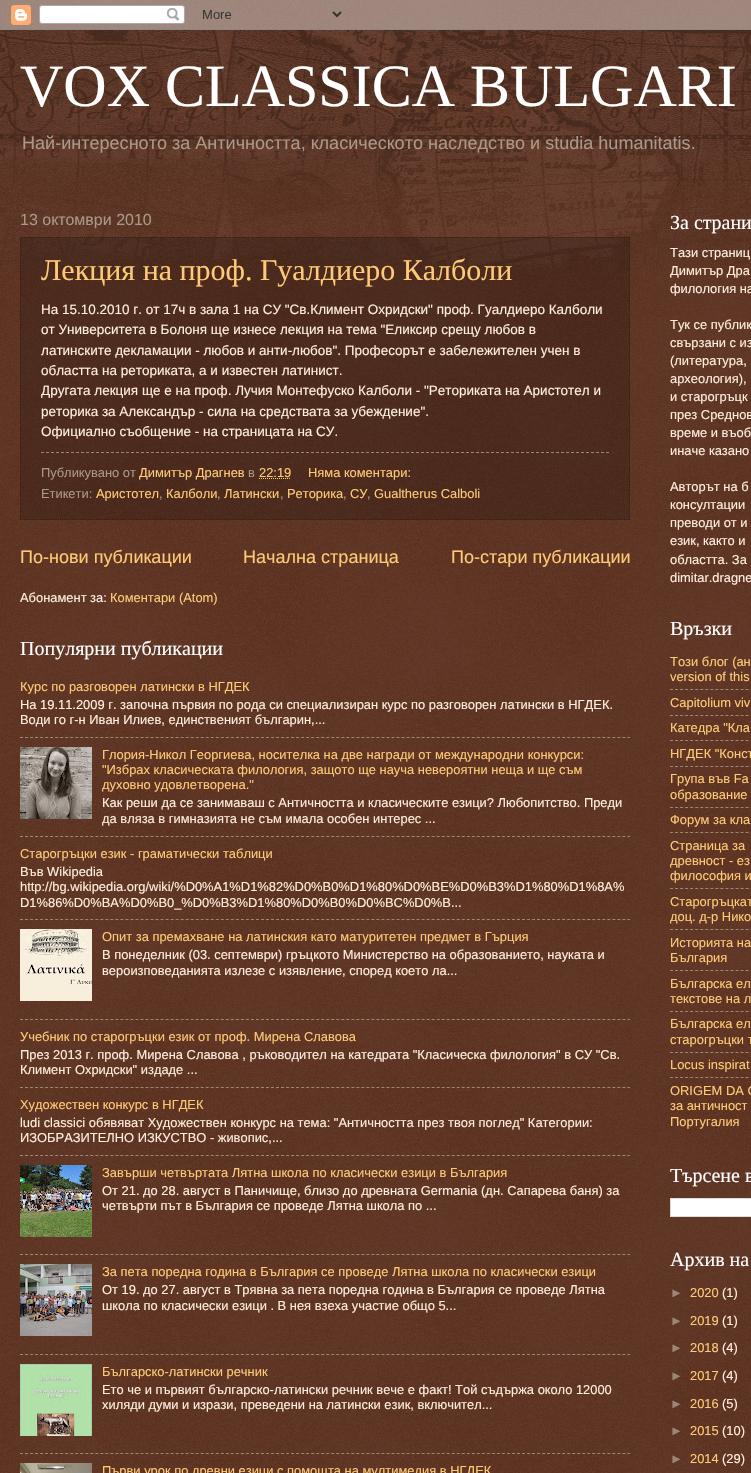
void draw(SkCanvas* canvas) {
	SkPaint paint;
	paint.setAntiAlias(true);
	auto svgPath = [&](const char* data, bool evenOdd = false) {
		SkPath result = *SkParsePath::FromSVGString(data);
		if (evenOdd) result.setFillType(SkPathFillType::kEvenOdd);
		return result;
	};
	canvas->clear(0xff441300);
	canvas->drawImageRect(SkImages::DeferredFromEncodedData(SkData::MakeFromFileName("img1.png")), SkRect::MakeXYWH(0, 0, 751, 1473), SkSamplingOptions());
	canvas->drawImageRect(SkImages::DeferredFromEncodedData(SkData::MakeFromFileName("img2.png")), SkRect::MakeXYWH(0, 0, 751, 30), SkSamplingOptions());
	canvas->drawImageRect(SkImages::DeferredFromEncodedData(SkData::MakeFromFileName("img3.png")), SkRect::MakeXYWH(0, 30, 751, 240), SkSamplingOptions());
	SkFont f1(fontMgr->matchFamilyStyle("Liberation Serif", SkFontStyle::Normal()), 60);
	f1.setSubpixel(true);
	paint.setColor(0xffffffff);
	canvas->drawString("VOX CLASSICA BULGARI", 20, 106, f1, paint);
	SkFont f2(fontMgr->matchFamilyStyle("Liberation Sans", SkFontStyle::Normal()), 18.05);
	f2.setSubpixel(true);
	paint.setColor(0xffaa9888);
	canvas->drawString("Най-интересното за Античността, класическото наследство и studia humanitatis.", 22, 149, f2, paint);
	SkFont f3(fontMgr->matchFamilyStyle("Liberation Sans", SkFontStyle::Normal()), 16);
	f3.setSubpixel(true);
	canvas->drawString("13 октомври 2010", 20, 225, f3, paint);
	paint.setColor(0x33000000);
	canvas->drawRect(SkRect::MakeXYWH(20, 237, 610, 283), paint);
	paint.setStroke(true);
	paint.setStrokeWidth(1);
	paint.setColor(0xff332111);
	paint.setPathEffect(SkDashPathEffect::Make({{1, 1}}, 0));
	canvas->drawPath(svgPath("M20 237.5H630"), paint);
	paint.setPathEffect(nullptr);
	paint.setPathEffect(SkDashPathEffect::Make({{1, 1}}, 0));
	canvas->drawPath(svgPath("M629.5 237V520"), paint);
	paint.setPathEffect(nullptr);
	paint.setPathEffect(SkDashPathEffect::Make({{1, 1}}, 0));
	canvas->drawPath(svgPath("M20 519.5H630"), paint);
	paint.setPathEffect(nullptr);
	paint.setPathEffect(SkDashPathEffect::Make({{1, 1}}, 0));
	canvas->drawPath(svgPath("M20.5 237V520"), paint);
	paint.setPathEffect(nullptr);
	SkFont f4(fontMgr->matchFamilyStyle("Liberation Serif", SkFontStyle::Normal()), 30);
	f4.setSubpixel(true);
	paint.setStroke(false);
	paint.setColor(0xffffca77);
	canvas->drawString("Лекция на проф. Гуалдиеро Калболи", 41, 280, f4, paint);
	SkFont f5(fontMgr->matchFamilyStyle("Liberation Sans", SkFontStyle::Normal()), 13.5);
	f5.setSubpixel(true);
	paint.setColor(0xffffeddd);
	canvas->drawString("На 15.10.2010 г. от 17ч в зала 1 на СУ \"Св.Климент Охридски\" проф. Гуалдиеро Калболи", 41, 314, f5, paint);
	canvas->drawString("от Университета в Болоня ще изнесе лекция на тема \"Еликсир срещу любов в", 41, 334, f5, paint);
	canvas->drawString("латинските декламации - любов и анти-любов\". Професорът е забележителен учен в", 41, 355, f5, paint);
	canvas->drawString("областта на реториката, а и известен латинист.", 41, 375, f5, paint);
	canvas->drawString("Другата лекция ще е на проф. Лучия Монтефуско Калболи - \"Реториката на Аристотел и", 41, 395, f5, paint);
	canvas->drawString("реторика за Александър - сила на средствата за убеждение\".", 41, 416, f5, paint);
	canvas->drawString("Официално съобщение - на страницата на СУ.", 41, 436, f5, paint);
	paint.setStroke(true);
	paint.setColor(0xff998777);
	paint.setPathEffect(SkDashPathEffect::Make({{3, 2}}, 0));
	canvas->drawPath(svgPath("M41 452.5H609"), paint);
	paint.setPathEffect(nullptr);
	SkFont f6(fontMgr->matchFamilyStyle("Liberation Sans", SkFontStyle::Normal()), 12.9);
	f6.setSubpixel(true);
	paint.setStroke(false);
	paint.setColor(0xffaa9888);
	canvas->drawString("Публикувано от", 41, 477, f6, paint);
	paint.setColor(0xffffca77);
	canvas->drawString("Димитър Драгнев", 139, 477, f6, paint);
	paint.setColor(0xffaa9888);
	canvas->drawString("в", 248, 477, f6, paint);
	paint.setColor(0xffffca77);
	canvas->drawString("22:19", 259, 477, f6, paint);
	paint.setStroke(true);
	paint.setPathEffect(SkDashPathEffect::Make({{1, 1}}, 0));
	canvas->drawPath(svgPath("M259 478.5H291"), paint);
	paint.setPathEffect(nullptr);
	paint.setStroke(false);
	canvas->drawString("Няма коментари:", 308, 477, f6, paint);
	paint.setColor(0xffaa9888);
	canvas->drawString("Етикети:", 41, 498, f6, paint);
	paint.setColor(0xffffca77);
	canvas->drawString("Аристотел", 96, 498, f6, paint);
	paint.setColor(0xffaa9888);
	canvas->drawString(",", 159, 498, f6, paint);
	paint.setColor(0xffffca77);
	canvas->drawString("Калболи", 166, 498, f6, paint);
	paint.setColor(0xffaa9888);
	canvas->drawString(",", 217, 498, f6, paint);
	paint.setColor(0xffffca77);
	canvas->drawString("Латински", 224, 498, f6, paint);
	paint.setColor(0xffaa9888);
	canvas->drawString(",", 280, 498, f6, paint);
	paint.setColor(0xffffca77);
	canvas->drawString("Реторика", 287, 498, f6, paint);
	paint.setColor(0xffaa9888);
	canvas->drawString(",", 343, 498, f6, paint);
	paint.setColor(0xffffca77);
	canvas->drawString("СУ", 350, 498, f6, paint);
	paint.setColor(0xffaa9888);
	canvas->drawString(",", 367, 498, f6, paint);
	paint.setColor(0xffffca77);
	canvas->drawString("Gualtherus Calboli", 374, 498, f6, paint);
	canvas->drawString("По-нови публикации", 20, 563, f2, paint);
	canvas->drawString("Начална страница", 243, 563, f2, paint);
	canvas->drawString("По-стари публикации", 451, 563, f2, paint);
	paint.setColor(0xffffeddd);
	canvas->drawString("Абонамент за:", 20, 602, f6, paint);
	paint.setColor(0xffffca77);
	canvas->drawString("Коментари (Atom)", 110, 602, f6, paint);
	SkFont f7(fontMgr->matchFamilyStyle("Liberation Serif", SkFontStyle::Normal()), 20);
	f7.setSubpixel(true);
	paint.setColor(0xffffffff);
	canvas->drawString("Популярни публикации", 20, 655, f7, paint);
	paint.setColor(0xffffca77);
	canvas->drawString("Курс по разговорен латински в НГДЕК", 20, 691, f6, paint);
	paint.setColor(0xffffeddd);
	canvas->drawString("На 19.11.2009 г. започна първия по рода си специализиран курс по разговорен латински в НГДЕК.", 20, 709, f6, paint);
	canvas->drawString("Води го г-н Иван Илиев, единственият българин,...", 20, 724, f6, paint);
	paint.setStroke(true);
	paint.setColor(0xff998777);
	paint.setPathEffect(SkDashPathEffect::Make({{3, 2.02f}}, 0));
	canvas->drawPath(svgPath("M20 737.5H630"), paint);
	paint.setPathEffect(nullptr);
	canvas->drawImageRect(SkImages::DeferredFromEncodedData(SkData::MakeFromFileName("img4.png")), SkRect::MakeXYWH(20, 747, 72, 72), SkSamplingOptions());
	paint.setStroke(false);
	paint.setColor(0xffffca77);
	canvas->drawString("Глория-Никол Георгиева, носителка на две награди от международни конкурси:", 102, 759, f6, paint);
	canvas->drawString("\"Избрах класическата филология, защото ще науча невероятни неща и ще съм", 102, 774, f6, paint);
	canvas->drawString("духовно удовлетворена.\"", 102, 789, f6, paint);
	paint.setColor(0xffffeddd);
	canvas->drawString("Как реши да се занимаваш с Античността и класическите езици? Любопитство. Преди", 102, 807, f6, paint);
	canvas->drawString("да вляза в гимназията не съм имала особен интерес ...", 102, 823, f6, paint);
	paint.setStroke(true);
	paint.setColor(0xff998777);
	paint.setPathEffect(SkDashPathEffect::Make({{3, 2.02f}}, 0));
	canvas->drawPath(svgPath("M20 836.5H630"), paint);
	paint.setPathEffect(nullptr);
	paint.setStroke(false);
	paint.setColor(0xffffca77);
	canvas->drawString("Старогръцки език - граматически таблици", 20, 858, f6, paint);
	paint.setColor(0xffffeddd);
	canvas->drawString("Във Wikipedia", 20, 876, f6, paint);
	canvas->drawString("http://bg.wikipedia.org/wiki/%D0%A1%D1%82%D0%B0%D1%80%D0%BE%D0%B3%D1%80%D1%8A%", 20, 891, f6, paint);
	canvas->drawString("D1%86%D0%BA%D0%B0_%D0%B3%D1%80%D0%B0%D0%BC%D0%B...", 20, 907, f6, paint);
	paint.setStroke(true);
	paint.setColor(0xff998777);
	paint.setPathEffect(SkDashPathEffect::Make({{3, 2.02f}}, 0));
	canvas->drawPath(svgPath("M20 919.5H630"), paint);
	paint.setPathEffect(nullptr);
	canvas->drawImageRect(SkImages::DeferredFromEncodedData(SkData::MakeFromFileName("img5.png")), SkRect::MakeXYWH(20, 929, 72, 72), SkSamplingOptions());
	paint.setStroke(false);
	paint.setColor(0xffffca77);
	canvas->drawString("Опит за премахване на латинския като матуритетен предмет в Гърция", 102, 941, f6, paint);
	paint.setColor(0xffffeddd);
	canvas->drawString("В понеделник (03. септември) гръцкото Министерство на образованието, науката и", 102, 959, f6, paint);
	canvas->drawString("вероизповеданията излезе с изявление, според което ла...", 102, 975, f6, paint);
	paint.setStroke(true);
	paint.setColor(0xff998777);
	paint.setPathEffect(SkDashPathEffect::Make({{3, 2.02f}}, 0));
	canvas->drawPath(svgPath("M20 1019.5H630"), paint);
	paint.setPathEffect(nullptr);
	paint.setStroke(false);
	paint.setColor(0xffffca77);
	canvas->drawString("Учебник по старогръцки език от проф. Мирена Славова", 20, 1041, f6, paint);
	paint.setColor(0xffffeddd);
	canvas->drawString("През 2013 г. проф. Мирена Славова , ръководител на катедрата \"Класическа филология\" в СУ \"Св.", 20, 1059, f6, paint);
	canvas->drawString("Климент Охридски\" издаде ...", 20, 1074, f6, paint);
	paint.setStroke(true);
	paint.setColor(0xff998777);
	paint.setPathEffect(SkDashPathEffect::Make({{3, 2.02f}}, 0));
	canvas->drawPath(svgPath("M20 1087.5H630"), paint);
	paint.setPathEffect(nullptr);
	paint.setStroke(false);
	paint.setColor(0xffffca77);
	canvas->drawString("Художествен конкурс в НГДЕК", 20, 1109, f6, paint);
	paint.setColor(0xffffeddd);
	canvas->drawString("ludi classici обявяват Художествен конкурс на тема: \"Античността през твоя поглед\" Категории:", 20, 1127, f6, paint);
	canvas->drawString("ИЗОБРАЗИТЕЛНО ИЗКУСТВО - живопис,...", 20, 1142, f6, paint);
	paint.setStroke(true);
	paint.setColor(0xff998777);
	paint.setPathEffect(SkDashPathEffect::Make({{3, 2.02f}}, 0));
	canvas->drawPath(svgPath("M20 1155.5H630"), paint);
	paint.setPathEffect(nullptr);
	canvas->drawImageRect(SkImages::DeferredFromEncodedData(SkData::MakeFromFileName("img6.png")), SkRect::MakeXYWH(20, 1165, 72, 72), SkSamplingOptions());
	paint.setStroke(false);
	paint.setColor(0xffffca77);
	canvas->drawString("Завърши четвъртата Лятна школа по класически езици в България", 102, 1177, f6, paint);
	paint.setColor(0xffffeddd);
	canvas->drawString("От 21. до 28. август в Паничище, близо до древната Germania (дн. Сапарева баня) за", 102, 1195, f6, paint);
	canvas->drawString("четвърти път в България се проведе Лятна школа по ...", 102, 1210, f6, paint);
	paint.setStroke(true);
	paint.setColor(0xff998777);
	paint.setPathEffect(SkDashPathEffect::Make({{3, 2.02f}}, 0));
	canvas->drawPath(svgPath("M20 1254.5H630"), paint);
	paint.setPathEffect(nullptr);
	canvas->drawImageRect(SkImages::DeferredFromEncodedData(SkData::MakeFromFileName("img7.png")), SkRect::MakeXYWH(20, 1264, 72, 72), SkSamplingOptions());
	paint.setStroke(false);
	paint.setColor(0xffffca77);
	canvas->drawString("За пета поредна година в България се проведе Лятна школа по класически езици", 102, 1276, f6, paint);
	paint.setColor(0xffffeddd);
	canvas->drawString("От 19. до 27. август в Трявна за пета поредна година в България се проведе Лятна", 102, 1294, f6, paint);
	canvas->drawString("школа по класически езици . В нея взеха участие общо 5...", 102, 1310, f6, paint);
	paint.setStroke(true);
	paint.setColor(0xff998777);
	paint.setPathEffect(SkDashPathEffect::Make({{3, 2.02f}}, 0));
	canvas->drawPath(svgPath("M20 1354.5H630"), paint);
	paint.setPathEffect(nullptr);
	canvas->drawImageRect(SkImages::DeferredFromEncodedData(SkData::MakeFromFileName("img8.png")), SkRect::MakeXYWH(20, 1364, 72, 72), SkSamplingOptions());
	paint.setStroke(false);
	paint.setColor(0xffffca77);
	canvas->drawString("Българско-латински речник", 102, 1376, f6, paint);
	paint.setColor(0xffffeddd);
	canvas->drawString("Ето че и първият българско-латински речник вече е факт! Той съдържа около 12000", 102, 1394, f6, paint);
	canvas->drawString("хиляди думи и изрази, преведени на латински език, включител...", 102, 1409, f6, paint);
	paint.setStroke(true);
	paint.setColor(0xff998777);
	paint.setPathEffect(SkDashPathEffect::Make({{3, 2.02f}}, 0));
	canvas->drawPath(svgPath("M20 1453.5H630"), paint);
	paint.setPathEffect(nullptr);
	canvas->drawImageRect(SkImages::DeferredFromEncodedData(SkData::MakeFromFileName("img9.png")), SkRect::MakeXYWH(20, 1463, 72, 10), SkSamplingOptions());
	paint.setStroke(false);
	paint.setColor(0xffffca77);
	canvas->drawString("Първи урок по древни езици с помощта на мултимедия в НГДЕК", 102, 1475, f6, paint);
	paint.setColor(0xffffffff);
	canvas->drawString("За страни", 670, 229, f7, paint);
	paint.setColor(0xffffeddd);
	canvas->drawString("Тази страниц", 670, 257, f6, paint);
	canvas->drawString("Димитър Дра", 670, 275, f6, paint);
	canvas->drawString("филология на", 670, 293, f6, paint);
	canvas->drawString("Тук се публик", 670, 329, f6, paint);
	canvas->drawString("свързани с из", 670, 347, f6, paint);
	canvas->drawString("(литература,", 670, 365, f6, paint);
	canvas->drawString("археология),", 670, 383, f6, paint);
	canvas->drawString("и старогръцк", 670, 401, f6, paint);
	canvas->drawString("през Среднов", 670, 419, f6, paint);
	canvas->drawString("време и въоб", 670, 437, f6, paint);
	canvas->drawString("иначе казано", 670, 455, f6, paint);
	canvas->drawString("Авторът на б", 670, 491, f6, paint);
	canvas->drawString("консултации", 670, 509, f6, paint);
	canvas->drawString("преводи от и", 670, 527, f6, paint);
	canvas->drawString("език, както и", 670, 545, f6, paint);
	canvas->drawString("областта. За", 670, 564, f6, paint);
	canvas->drawString("dimitar.dragne", 670, 582, f6, paint);
	paint.setColor(0xffffffff);
	canvas->drawString("Връзки", 670, 635, f7, paint);
	paint.setColor(0xffffca77);
	canvas->drawString("Този блог (ан", 670, 666, f6, paint);
	canvas->drawString("version of this", 670, 681, f6, paint);
	paint.setStroke(true);
	paint.setColor(0xff998777);
	paint.setPathEffect(SkDashPathEffect::Make({{3, 2.04f}}, 0));
	canvas->drawPath(svgPath("M670 689.5H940"), paint);
	paint.setPathEffect(nullptr);
	paint.setStroke(false);
	paint.setColor(0xffffca77);
	canvas->drawString("Capitolium viv", 670, 707, f6, paint);
	paint.setStroke(true);
	paint.setColor(0xff998777);
	paint.setPathEffect(SkDashPathEffect::Make({{3, 2.04f}}, 0));
	canvas->drawPath(svgPath("M670 715.5H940"), paint);
	paint.setPathEffect(nullptr);
	paint.setStroke(false);
	paint.setColor(0xffffca77);
	canvas->drawString("Катедра \"Кла", 670, 732, f6, paint);
	paint.setStroke(true);
	paint.setColor(0xff998777);
	paint.setPathEffect(SkDashPathEffect::Make({{3, 2.04f}}, 0));
	canvas->drawPath(svgPath("M670 740.5H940"), paint);
	paint.setPathEffect(nullptr);
	paint.setStroke(false);
	paint.setColor(0xffffca77);
	canvas->drawString("НГДЕК \"Конст", 670, 758, f6, paint);
	paint.setStroke(true);
	paint.setColor(0xff998777);
	paint.setPathEffect(SkDashPathEffect::Make({{3, 2.04f}}, 0));
	canvas->drawPath(svgPath("M670 766.5H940"), paint);
	paint.setPathEffect(nullptr);
	paint.setStroke(false);
	paint.setColor(0xffffca77);
	canvas->drawString("Група във Fa", 670, 783, f6, paint);
	canvas->drawString("образование", 670, 799, f6, paint);
	paint.setStroke(true);
	paint.setColor(0xff998777);
	paint.setPathEffect(SkDashPathEffect::Make({{3, 2.04f}}, 0));
	canvas->drawPath(svgPath("M670 807.5H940"), paint);
	paint.setPathEffect(nullptr);
	paint.setStroke(false);
	paint.setColor(0xffffca77);
	canvas->drawString("Форум за кла", 670, 824, f6, paint);
	paint.setStroke(true);
	paint.setColor(0xff998777);
	paint.setPathEffect(SkDashPathEffect::Make({{3, 2.04f}}, 0));
	canvas->drawPath(svgPath("M670 832.5H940"), paint);
	paint.setPathEffect(nullptr);
	paint.setStroke(false);
	paint.setColor(0xffffca77);
	canvas->drawString("Страница за", 670, 850, f6, paint);
	canvas->drawString("древност - ез", 670, 865, f6, paint);
	canvas->drawString("философия и", 670, 880, f6, paint);
	paint.setStroke(true);
	paint.setColor(0xff998777);
	paint.setPathEffect(SkDashPathEffect::Make({{3, 2.04f}}, 0));
	canvas->drawPath(svgPath("M670 888.5H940"), paint);
	paint.setPathEffect(nullptr);
	paint.setStroke(false);
	paint.setColor(0xffffca77);
	canvas->drawString("Старогръцкат", 670, 906, f6, paint);
	canvas->drawString("доц. д-р Нико", 670, 921, f6, paint);
	paint.setStroke(true);
	paint.setColor(0xff998777);
	paint.setPathEffect(SkDashPathEffect::Make({{3, 2.04f}}, 0));
	canvas->drawPath(svgPath("M670 929.5H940"), paint);
	paint.setPathEffect(nullptr);
	paint.setStroke(false);
	paint.setColor(0xffffca77);
	canvas->drawString("Историята на", 670, 947, f6, paint);
	canvas->drawString("България", 670, 962, f6, paint);
	paint.setStroke(true);
	paint.setColor(0xff998777);
	paint.setPathEffect(SkDashPathEffect::Make({{3, 2.04f}}, 0));
	canvas->drawPath(svgPath("M670 970.5H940"), paint);
	paint.setPathEffect(nullptr);
	paint.setStroke(false);
	paint.setColor(0xffffca77);
	canvas->drawString("Българска ел", 670, 988, f6, paint);
	canvas->drawString("текстове на л", 670, 1003, f6, paint);
	paint.setStroke(true);
	paint.setColor(0xff998777);
	paint.setPathEffect(SkDashPathEffect::Make({{3, 2.04f}}, 0));
	canvas->drawPath(svgPath("M670 1011.5H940"), paint);
	paint.setPathEffect(nullptr);
	paint.setStroke(false);
	paint.setColor(0xffffca77);
	canvas->drawString("Българска ел", 670, 1028, f6, paint);
	canvas->drawString("старогръцки т", 670, 1044, f6, paint);
	paint.setStroke(true);
	paint.setColor(0xff998777);
	paint.setPathEffect(SkDashPathEffect::Make({{3, 2.04f}}, 0));
	canvas->drawPath(svgPath("M670 1052.5H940"), paint);
	paint.setPathEffect(nullptr);
	paint.setStroke(false);
	paint.setColor(0xffffca77);
	canvas->drawString("Locus inspirat", 670, 1069, f6, paint);
	paint.setStroke(true);
	paint.setColor(0xff998777);
	paint.setPathEffect(SkDashPathEffect::Make({{3, 2.04f}}, 0));
	canvas->drawPath(svgPath("M670 1077.5H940"), paint);
	paint.setPathEffect(nullptr);
	paint.setStroke(false);
	paint.setColor(0xffffca77);
	canvas->drawString("ORIGEM DA C", 670, 1095, f6, paint);
	canvas->drawString("за античност", 670, 1110, f6, paint);
	canvas->drawString("Португалия", 670, 1126, f6, paint);
	paint.setColor(0xffffffff);
	canvas->drawString("Търсене в", 670, 1182, f7, paint);
	canvas->drawRect(SkRect::MakeXYWH(670.5, 1198.5, 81, 18), paint);
	paint.setStroke(true);
	paint.setColor(0xffdddddd);
	canvas->drawRect(SkRect::MakeXYWH(670.5, 1198.5, 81, 18), paint);
	paint.setStroke(false);
	paint.setColor(0xffffffff);
	canvas->drawString("Архив на", 670, 1266, f7, paint);
	paint.setColor(0xff998777);
	canvas->drawString("►", 670, 1297, f6, paint);
	paint.setColor(0xffffca77);
	canvas->drawString("2020", 690, 1297, f6, paint);
	paint.setColor(0xffffeddd);
	canvas->drawString("(1)", 722, 1297, f6, paint);
	paint.setColor(0xff998777);
	canvas->drawString("►", 670, 1325, f6, paint);
	paint.setColor(0xffffca77);
	canvas->drawString("2019", 690, 1325, f6, paint);
	paint.setColor(0xffffeddd);
	canvas->drawString("(1)", 722, 1325, f6, paint);
	paint.setColor(0xff998777);
	canvas->drawString("►", 670, 1352, f6, paint);
	paint.setColor(0xffffca77);
	canvas->drawString("2018", 690, 1352, f6, paint);
	paint.setColor(0xffffeddd);
	canvas->drawString("(4)", 722, 1352, f6, paint);
	paint.setColor(0xff998777);
	canvas->drawString("►", 670, 1380, f6, paint);
	paint.setColor(0xffffca77);
	canvas->drawString("2017", 690, 1380, f6, paint);
	paint.setColor(0xffffeddd);
	canvas->drawString("(4)", 722, 1380, f6, paint);
	paint.setColor(0xff998777);
	canvas->drawString("►", 670, 1408, f6, paint);
	paint.setColor(0xffffca77);
	canvas->drawString("2016", 690, 1408, f6, paint);
	paint.setColor(0xffffeddd);
	canvas->drawString("(5)", 722, 1408, f6, paint);
	paint.setColor(0xff998777);
	canvas->drawString("►", 670, 1435, f6, paint);
	paint.setColor(0xffffca77);
	canvas->drawString("2015", 690, 1435, f6, paint);
	paint.setColor(0xffffeddd);
	canvas->drawString("(10)", 722, 1435, f6, paint);
	paint.setColor(0xff998777);
	canvas->drawString("►", 670, 1463, f6, paint);
	paint.setColor(0xffffca77);
	canvas->drawString("2014", 690, 1463, f6, paint);
	paint.setColor(0xffffeddd);
	canvas->drawString("(29)", 722, 1463, f6, paint);
}
